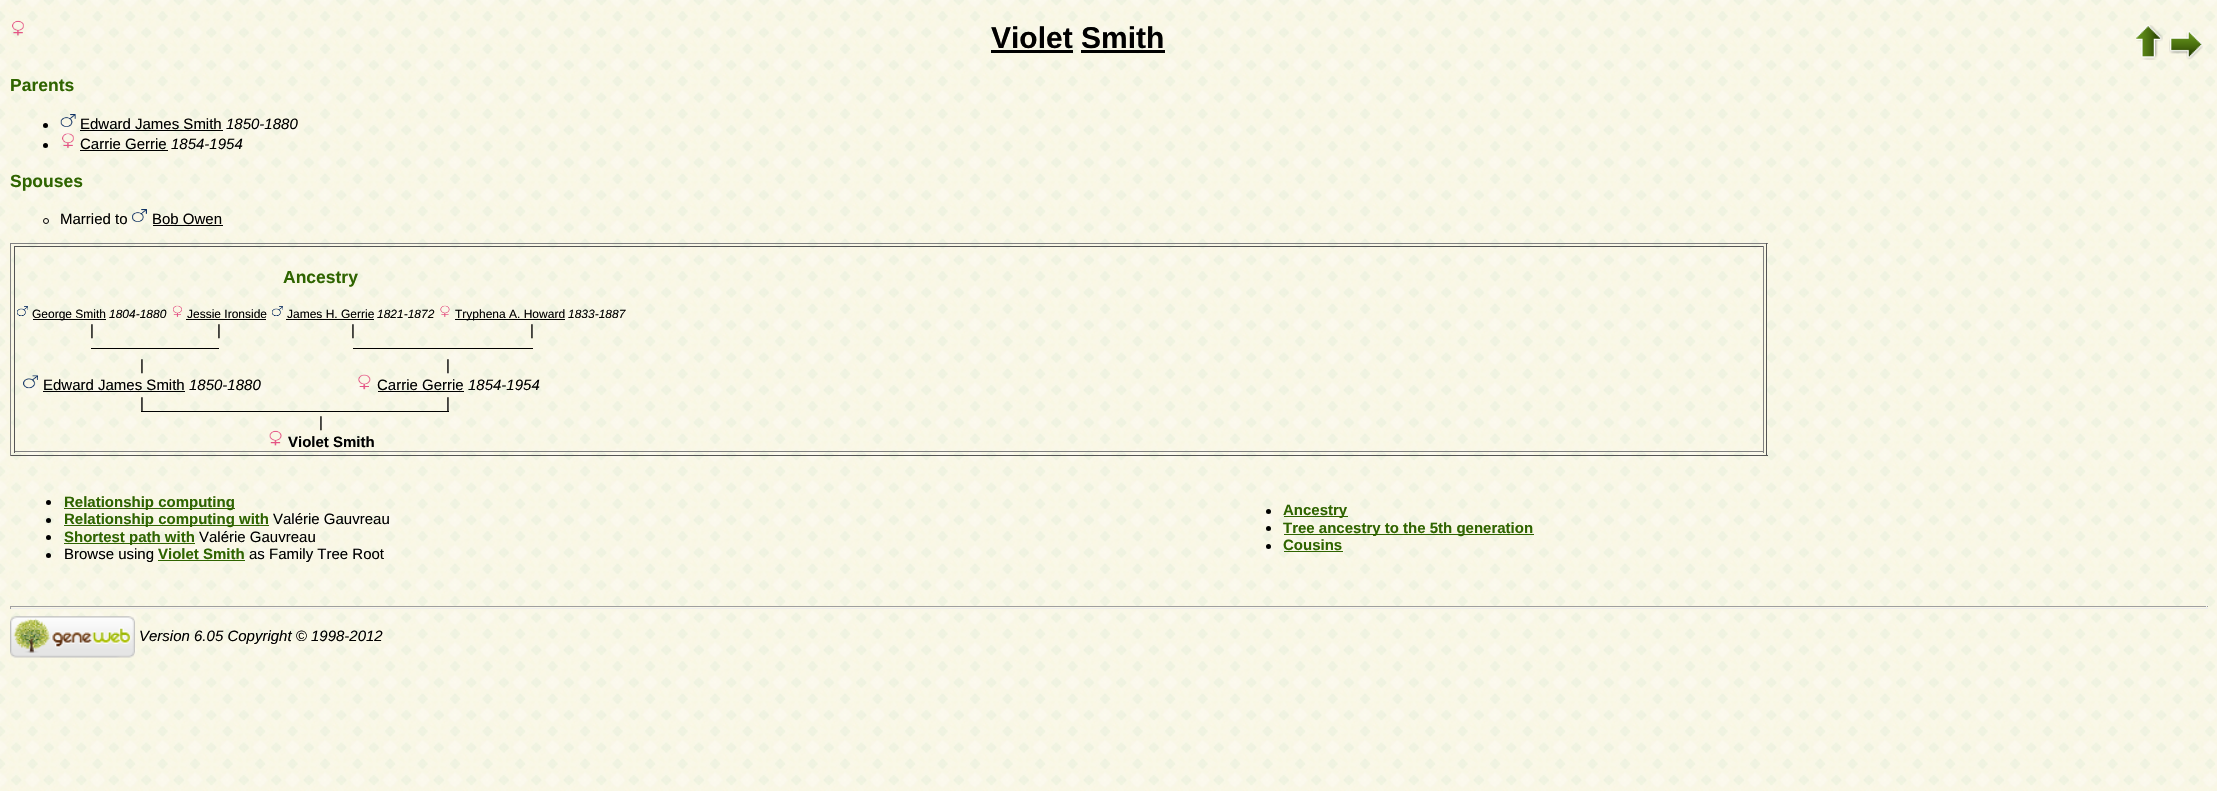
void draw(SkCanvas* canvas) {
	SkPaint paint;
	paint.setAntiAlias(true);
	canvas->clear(0xffffffff);
	canvas->drawImageRect(SkImages::DeferredFromEncodedData(SkData::MakeFromFileName("img1.png")), SkRect::MakeXYWH(0, 0, 2217, 791), SkSamplingOptions());
	canvas->drawImageRect(SkImages::DeferredFromEncodedData(SkData::MakeFromFileName("img2.png")), SkRect::MakeXYWH(12, 20, 12, 16), SkSamplingOptions());
	SkFont f1(fontMgr->matchFamilyStyle("Liberation Sans", SkFontStyle::Bold()), 30);
	f1.setSubpixel(true);
	paint.setColor(0xff000000);
	canvas->drawString("Violet Smith", 991, 48, f1, paint);
	canvas->drawRect(SkRect::MakeXYWH(991, 50, 82, 3), paint);
	canvas->drawRect(SkRect::MakeXYWH(1081, 50, 84, 3), paint);
	canvas->drawImageRect(SkImages::DeferredFromEncodedData(SkData::MakeFromFileName("img3.png")), SkRect::MakeXYWH(2136, 25, 27, 35), SkSamplingOptions());
	canvas->drawImageRect(SkImages::DeferredFromEncodedData(SkData::MakeFromFileName("img4.png")), SkRect::MakeXYWH(2169, 31, 34, 29), SkSamplingOptions());
	SkFont f2(fontMgr->matchFamilyStyle("Liberation Sans", SkFontStyle::Bold()), 17.5);
	f2.setSubpixel(true);
	paint.setColor(0xff2f6400);
	canvas->drawString("Parents", 10, 91, f2, paint);
	paint.setColor(0xff000000);
	canvas->drawCircle(45.5, 125.5, 2.5, paint);
	canvas->drawImageRect(SkImages::DeferredFromEncodedData(SkData::MakeFromFileName("img5.png")), SkRect::MakeXYWH(60, 114, 16, 13), SkSamplingOptions());
	SkFont f3(fontMgr->matchFamilyStyle("Liberation Sans", SkFontStyle::Normal()), 15);
	f3.setSubpixel(true);
	canvas->drawString("Edward James Smith", 80, 129, f3, paint);
	canvas->drawRect(SkRect::MakeXYWH(80, 130, 143, 1), paint);
	SkFont f4(fontMgr->matchFamilyStyle("Liberation Sans", SkFontStyle::Italic()), 15);
	f4.setSubpixel(true);
	canvas->drawString("1850-1880", 226, 129, f4, paint);
	canvas->drawCircle(45.5, 145.5, 2.5, paint);
	canvas->drawImageRect(SkImages::DeferredFromEncodedData(SkData::MakeFromFileName("img6.png")), SkRect::MakeXYWH(62, 133, 12, 15), SkSamplingOptions());
	canvas->drawString("Carrie Gerrie", 80, 149, f3, paint);
	canvas->drawRect(SkRect::MakeXYWH(80, 150, 88, 1), paint);
	canvas->drawString("1854-1954", 171, 149, f4, paint);
	paint.setColor(0xff2f6400);
	canvas->drawString("Spouses", 10, 187, f2, paint);
	paint.setStroke(true);
	paint.setStrokeWidth(1);
	paint.setColor(0xff000000);
	canvas->drawCircle(46, 221, 2.5, paint);
	paint.setStroke(false);
	canvas->drawString("Married to", 60, 224, f3, paint);
	canvas->drawImageRect(SkImages::DeferredFromEncodedData(SkData::MakeFromFileName("img7.png")), SkRect::MakeXYWH(132, 209, 15, 13), SkSamplingOptions());
	canvas->drawString("Bob Owen", 152, 224, f3, paint);
	canvas->drawRect(SkRect::MakeXYWH(153, 225, 70, 1), paint);
	paint.setColor(0xff808080);
	canvas->drawRect(SkRect::MakeXYWH(10, 243, 1758, 1), paint);
	paint.setColor(0xff555555);
	canvas->drawRect(SkRect::MakeXYWH(1766, 243, 1, 213), paint);
	canvas->drawRect(SkRect::MakeXYWH(10, 455, 1758, 1), paint);
	paint.setColor(0xff808080);
	canvas->drawRect(SkRect::MakeXYWH(10, 243, 1, 213), paint);
	paint.setColor(0xff555555);
	canvas->drawRect(SkRect::MakeXYWH(14, 246, 1750, 1), paint);
	paint.setColor(0xff808080);
	canvas->drawRect(SkRect::MakeXYWH(1763, 246, 1, 207), paint);
	canvas->drawRect(SkRect::MakeXYWH(14, 451, 1750, 1), paint);
	paint.setColor(0xff555555);
	canvas->drawRect(SkRect::MakeXYWH(14, 246, 1, 207), paint);
	paint.setColor(0xff2f6400);
	canvas->drawString("Ancestry", 283, 283, f2, paint);
	canvas->drawImageRect(SkImages::DeferredFromEncodedData(SkData::MakeFromFileName("img8.png")), SkRect::MakeXYWH(17, 306, 11, 10), SkSamplingOptions());
	paint.setColor(0xff000000);
	canvas->drawRect(SkRect::MakeXYWH(33, 319, 73, 1), paint);
	SkFont f5(fontMgr->matchFamilyStyle("Liberation Sans", SkFontStyle::Normal()), 12);
	f5.setSubpixel(true);
	canvas->drawString("George Smith", 32, 318, f5, paint);
	SkFont f6(fontMgr->matchFamilyStyle("Liberation Sans", SkFontStyle::Italic()), 12);
	f6.setSubpixel(true);
	canvas->drawString("1804-1880", 109, 318, f6, paint);
	canvas->drawImageRect(SkImages::DeferredFromEncodedData(SkData::MakeFromFileName("img9.png")), SkRect::MakeXYWH(173, 305, 9, 12), SkSamplingOptions());
	canvas->drawString("Jessie Ironside", 187, 318, f5, paint);
	canvas->drawRect(SkRect::MakeXYWH(186, 319, 80, 1), paint);
	canvas->drawImageRect(SkImages::DeferredFromEncodedData(SkData::MakeFromFileName("img10.png")), SkRect::MakeXYWH(272, 306, 11, 10), SkSamplingOptions());
	canvas->drawString("James H. Gerrie", 287, 318, f5, paint);
	canvas->drawRect(SkRect::MakeXYWH(286, 319, 88, 1), paint);
	canvas->drawString("1821-1872", 377, 318, f6, paint);
	canvas->drawImageRect(SkImages::DeferredFromEncodedData(SkData::MakeFromFileName("img11.png")), SkRect::MakeXYWH(440, 305, 10, 12), SkSamplingOptions());
	canvas->drawRect(SkRect::MakeXYWH(455, 319, 110, 1), paint);
	canvas->drawString("Tryphena A. Howard", 455, 318, f5, paint);
	canvas->drawString("1833-1887", 568, 318, f6, paint);
	canvas->drawString("|", 90, 335, f3, paint);
	canvas->drawString("|", 217, 335, f3, paint);
	canvas->drawString("|", 351, 335, f3, paint);
	canvas->drawString("|", 530, 335, f3, paint);
	canvas->drawRect(SkRect::MakeXYWH(91, 348, 128, 1), paint);
	canvas->drawRect(SkRect::MakeXYWH(353, 348, 180, 1), paint);
	canvas->drawString("|", 140, 370, f3, paint);
	canvas->drawString("|", 446, 370, f3, paint);
	canvas->drawImageRect(SkImages::DeferredFromEncodedData(SkData::MakeFromFileName("img12.png")), SkRect::MakeXYWH(23, 375, 15, 14), SkSamplingOptions());
	canvas->drawString("Edward James Smith", 43, 390, f3, paint);
	canvas->drawRect(SkRect::MakeXYWH(43, 391, 142, 1), paint);
	canvas->drawString("1850-1880", 189, 390, f4, paint);
	canvas->drawImageRect(SkImages::DeferredFromEncodedData(SkData::MakeFromFileName("img13.png")), SkRect::MakeXYWH(358, 374, 13, 16), SkSamplingOptions());
	canvas->drawString("Carrie Gerrie", 377, 390, f3, paint);
	canvas->drawRect(SkRect::MakeXYWH(378, 391, 86, 1), paint);
	canvas->drawString("1854-1954", 468, 390, f4, paint);
	canvas->drawString("|", 140, 408, f3, paint);
	canvas->drawString("|", 446, 408, f3, paint);
	canvas->drawRect(SkRect::MakeXYWH(141, 411, 308, 1), paint);
	canvas->drawString("|", 319, 427, f3, paint);
	canvas->drawImageRect(SkImages::DeferredFromEncodedData(SkData::MakeFromFileName("img14.png")), SkRect::MakeXYWH(269, 430, 13, 16), SkSamplingOptions());
	SkFont f7(fontMgr->matchFamilyStyle("Liberation Sans", SkFontStyle::Bold()), 15);
	f7.setSubpixel(true);
	canvas->drawString("Violet Smith", 288, 447, f7, paint);
	canvas->drawCircle(48.5, 502.5, 2.5, paint);
	paint.setColor(0xff2f6400);
	canvas->drawRect(SkRect::MakeXYWH(64, 508, 171, 1), paint);
	canvas->drawString("Relationship computing", 64, 507, f7, paint);
	paint.setColor(0xff000000);
	canvas->drawCircle(48.5, 520.5, 2.5, paint);
	paint.setColor(0xff2f6400);
	canvas->drawRect(SkRect::MakeXYWH(64, 525, 205, 1), paint);
	canvas->drawString("Relationship computing with", 64, 524, f7, paint);
	paint.setColor(0xff000000);
	canvas->drawString("Valérie Gauvreau", 273, 524, f3, paint);
	canvas->drawCircle(48.5, 537.5, 2.5, paint);
	paint.setColor(0xff2f6400);
	canvas->drawRect(SkRect::MakeXYWH(64, 543, 131, 1), paint);
	canvas->drawString("Shortest path with", 64, 542, f7, paint);
	paint.setColor(0xff000000);
	canvas->drawString("Valérie Gauvreau", 199, 542, f3, paint);
	canvas->drawCircle(48.5, 555.5, 2.5, paint);
	canvas->drawString("Browse using", 64, 559, f3, paint);
	paint.setColor(0xff2f6400);
	canvas->drawString("Violet Smith", 158, 559, f7, paint);
	canvas->drawRect(SkRect::MakeXYWH(158, 560, 87, 1), paint);
	paint.setColor(0xff000000);
	canvas->drawString("as Family Tree Root", 249, 559, f3, paint);
	canvas->drawCircle(1268.5, 511.5, 2.5, paint);
	paint.setColor(0xff2f6400);
	canvas->drawRect(SkRect::MakeXYWH(1284, 516, 64, 1), paint);
	canvas->drawString("Ancestry", 1283, 515, f7, paint);
	paint.setColor(0xff000000);
	canvas->drawCircle(1268.5, 528.5, 2.5, paint);
	paint.setColor(0xff2f6400);
	canvas->drawRect(SkRect::MakeXYWH(1284, 534, 250, 1), paint);
	canvas->drawString("Tree ancestry to the 5th generation", 1283, 533, f7, paint);
	paint.setColor(0xff000000);
	canvas->drawCircle(1268.5, 546.5, 2.5, paint);
	paint.setColor(0xff2f6400);
	canvas->drawString("Cousins", 1283, 550, f7, paint);
	canvas->drawRect(SkRect::MakeXYWH(1284, 551, 59, 1), paint);
	paint.setColor(0xff9f9f9f);
	canvas->drawRect(SkRect::MakeXYWH(10, 606, 2198, 1), paint);
	paint.setColor(0xffeeeeee);
	canvas->drawRect(SkRect::MakeXYWH(2206, 606, 1, 3), paint);
	canvas->drawRect(SkRect::MakeXYWH(10, 608, 2198, 1), paint);
	paint.setColor(0xff9f9f9f);
	canvas->drawRect(SkRect::MakeXYWH(10, 606, 1, 3), paint);
	canvas->drawImageRect(SkImages::DeferredFromEncodedData(SkData::MakeFromFileName("img15.png")), SkRect::MakeXYWH(10, 616, 125, 42), SkSamplingOptions());
	paint.setColor(0xff000000);
	canvas->drawString("Version 6.05 Copyright © 1998-2012", 139, 641, f4, paint);
}
